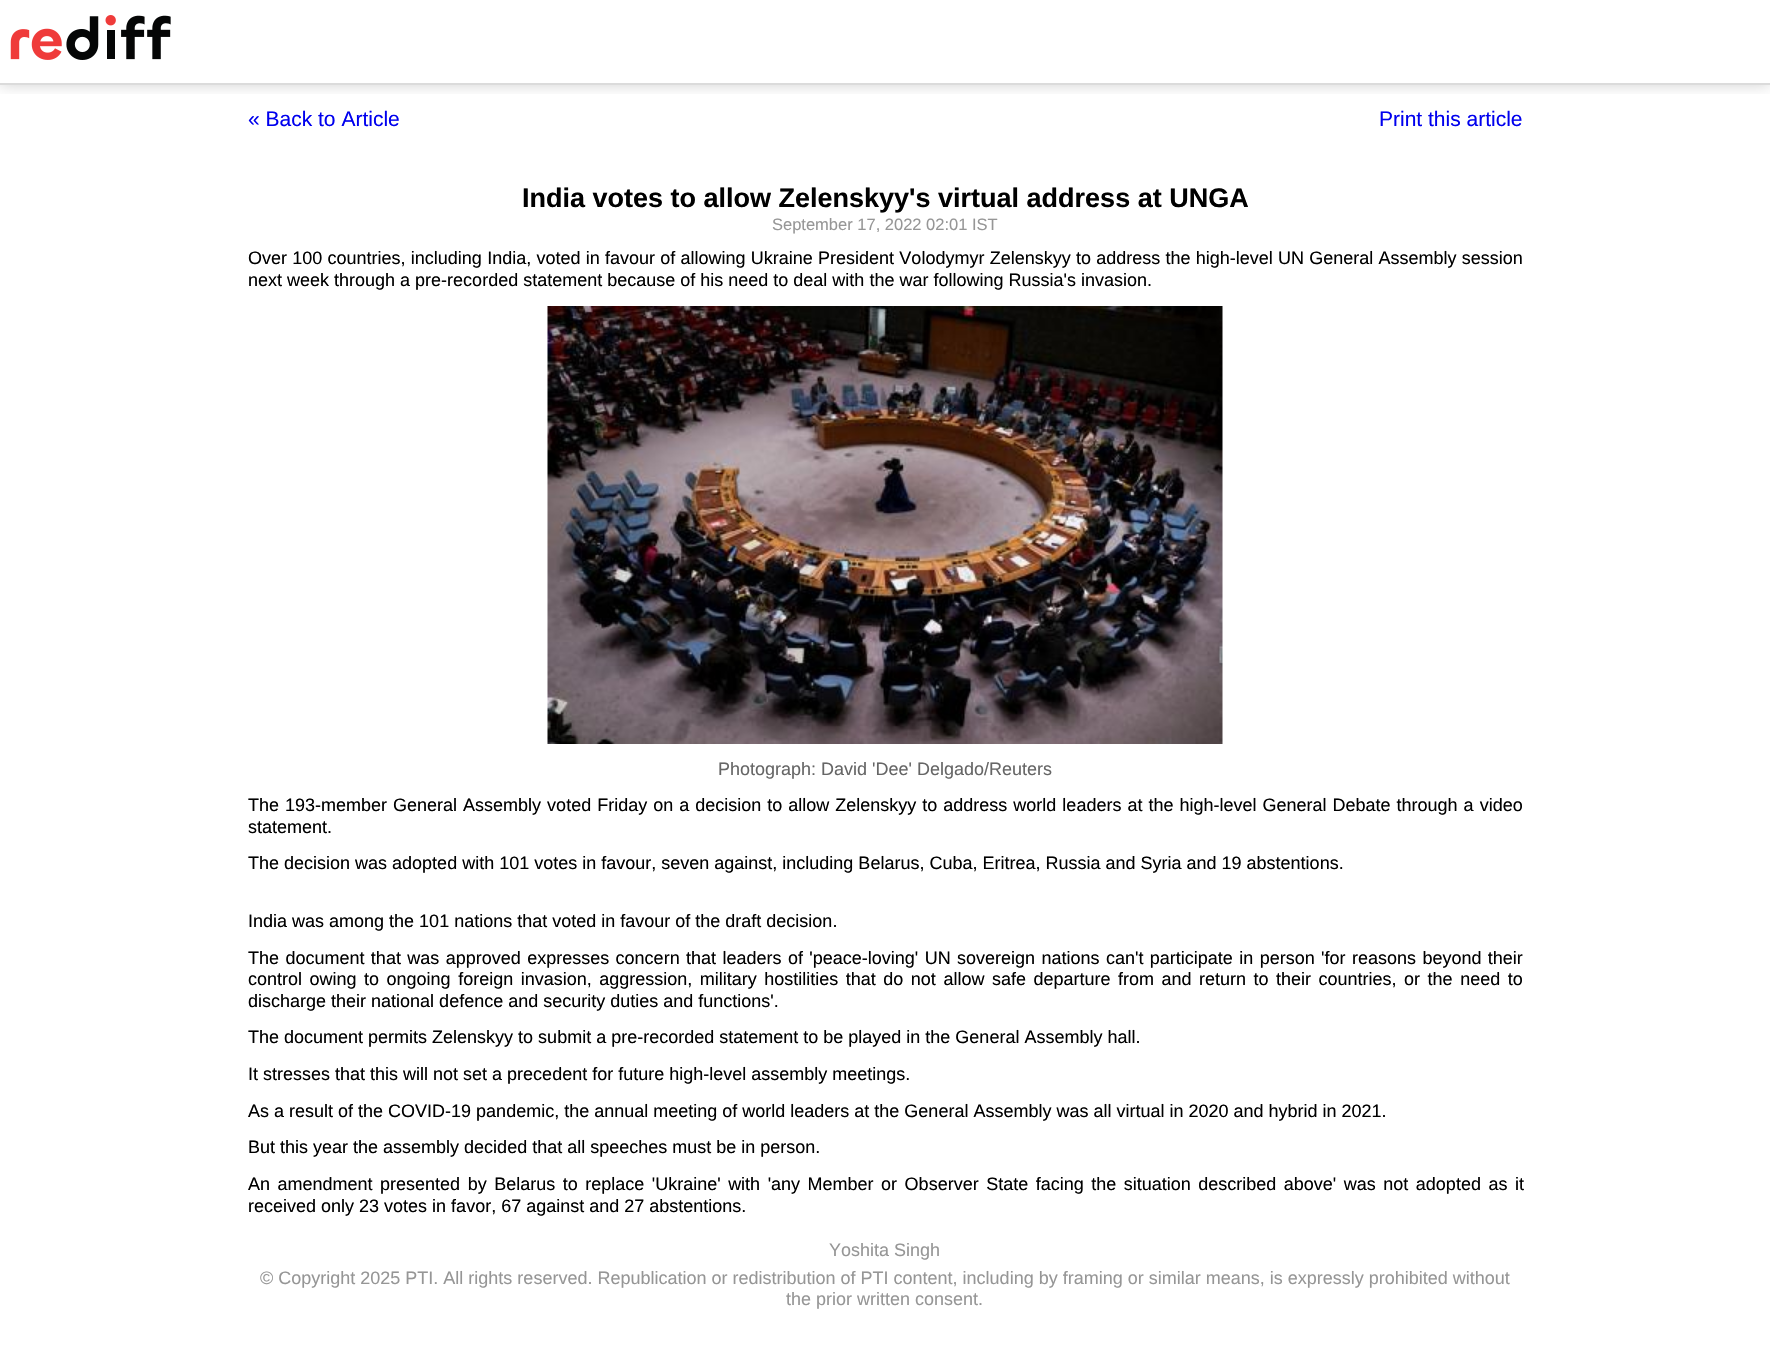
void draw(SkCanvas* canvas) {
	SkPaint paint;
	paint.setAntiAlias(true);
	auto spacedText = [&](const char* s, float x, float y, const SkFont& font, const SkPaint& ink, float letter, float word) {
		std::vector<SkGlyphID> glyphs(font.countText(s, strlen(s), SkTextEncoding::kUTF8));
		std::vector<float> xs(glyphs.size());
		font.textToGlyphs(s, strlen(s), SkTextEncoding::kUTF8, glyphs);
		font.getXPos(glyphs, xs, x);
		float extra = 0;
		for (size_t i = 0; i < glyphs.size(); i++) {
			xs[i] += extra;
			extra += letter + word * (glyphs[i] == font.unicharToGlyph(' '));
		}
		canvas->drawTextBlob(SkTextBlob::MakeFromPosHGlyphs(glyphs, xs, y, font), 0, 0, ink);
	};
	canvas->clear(0xffffffff);
	canvas->save();
	canvas->clipRect(SkRect::MakeXYWH(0, 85, 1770, 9));
	paint.setColor(0x33000000);
	paint.setMaskFilter(SkMaskFilter::MakeBlur(kNormal_SkBlurStyle, 7.5));
	canvas->drawRect(SkRect::MakeXYWH(0, 0, 1770, 84), paint);
	paint.setMaskFilter(nullptr);
	canvas->restore();
	paint.setColor(0xffdbdbdb);
	canvas->drawRect(SkRect::MakeXYWH(0, 83, 1770, 2), paint);
	canvas->drawImageRect(SkImages::DeferredFromEncodedData(SkData::MakeFromFileName("img1.png")), SkRect::MakeXYWH(10, 15, 161, 45), SkSamplingOptions());
	SkFont f1(fontMgr->matchFamilyStyle("Liberation Sans", SkFontStyle::Normal()), 21);
	f1.setSubpixel(true);
	paint.setColor(0xff0000ee);
	canvas->drawString("« Back to Article", 248, 126, f1, paint);
	canvas->drawString("Print this article", 1379, 126, f1, paint);
	SkFont f2(fontMgr->matchFamilyStyle("Liberation Sans", SkFontStyle::Bold()), 27);
	f2.setSubpixel(true);
	paint.setColor(0xff000000);
	canvas->drawString("India votes to allow Zelenskyy's virtual address at UNGA", 522, 207, f2, paint);
	SkFont f3(fontMgr->matchFamilyStyle("Liberation Sans", SkFontStyle::Normal()), 16.5);
	f3.setSubpixel(true);
	paint.setColor(0xff969696);
	canvas->drawString("September 17, 2022 02:01 IST", 772, 230, f3, paint);
	SkFont f4(fontMgr->matchFamilyStyle("Liberation Sans", SkFontStyle::Normal()), 18);
	f4.setSubpixel(true);
	paint.setColor(0xff000000);
	spacedText("Over 100 countries, including India, voted in favour of allowing Ukraine President Volodymyr Zelenskyy to address the high-level UN General Assembly session", 248, 264, f4, paint, 0, 0.25);
	canvas->drawString("next week through a pre-recorded statement because of his need to deal with the war following Russia's invasion.", 248, 286, f4, paint);
	canvas->drawImageRect(SkImages::DeferredFromEncodedData(SkData::MakeFromFileName("img2.png")), SkRect::MakeXYWH(547, 306, 676, 438), SkSamplingOptions());
	paint.setColor(0xff666666);
	canvas->drawString("Photograph: David 'Dee' Delgado/Reuters", 718, 775, f4, paint);
	paint.setColor(0xff000000);
	spacedText("The 193-member General Assembly voted Friday on a decision to allow Zelenskyy to address world leaders at the high-level General Debate through a video", 248, 811, f4, paint, 0, 1);
	canvas->drawString("statement.", 248, 833, f4, paint);
	canvas->drawString("The decision was adopted with 101 votes in favour, seven against, including Belarus, Cuba, Eritrea, Russia and Syria and 19 abstentions.", 248, 869, f4, paint);
	canvas->drawString("India was among the 101 nations that voted in favour of the draft decision.", 248, 927, f4, paint);
	spacedText("The document that was approved expresses concern that leaders of 'peace-loving' UN sovereign nations can't participate in person 'for reasons beyond their", 248, 964, f4, paint, 0, 1.4);
	spacedText("control owing to ongoing foreign invasion, aggression, military hostilities that do not allow safe departure from and return to their countries, or the need to", 248, 985, f4, paint, 0, 2.5);
	canvas->drawString("discharge their national defence and security duties and functions'.", 248, 1007, f4, paint);
	canvas->drawString("The document permits Zelenskyy to submit a pre-recorded statement to be played in the General Assembly hall.", 248, 1043, f4, paint);
	canvas->drawString("It stresses that this will not set a precedent for future high-level assembly meetings.", 248, 1080, f4, paint);
	canvas->drawString("As a result of the COVID-19 pandemic, the annual meeting of world leaders at the General Assembly was all virtual in 2020 and hybrid in 2021.", 248, 1117, f4, paint);
	canvas->drawString("But this year the assembly decided that all speeches must be in person.", 248, 1153, f4, paint);
	spacedText("An amendment presented by Belarus to replace 'Ukraine' with 'any Member or Observer State facing the situation described above' was not adopted as it", 248, 1190, f4, paint, 0, 2.5);
	canvas->drawString("received only 23 votes in favor, 67 against and 27 abstentions.", 248, 1212, f4, paint);
	paint.setColor(0xff969696);
	canvas->drawString("Yoshita Singh", 829, 1256, f4, paint);
	canvas->drawString("© Copyright 2025 PTI. All rights reserved. Republication or redistribution of PTI content, including by framing or similar means, is expressly prohibited without", 260, 1284, f4, paint);
	canvas->drawString("the prior written consent.", 786, 1305, f4, paint);
}
